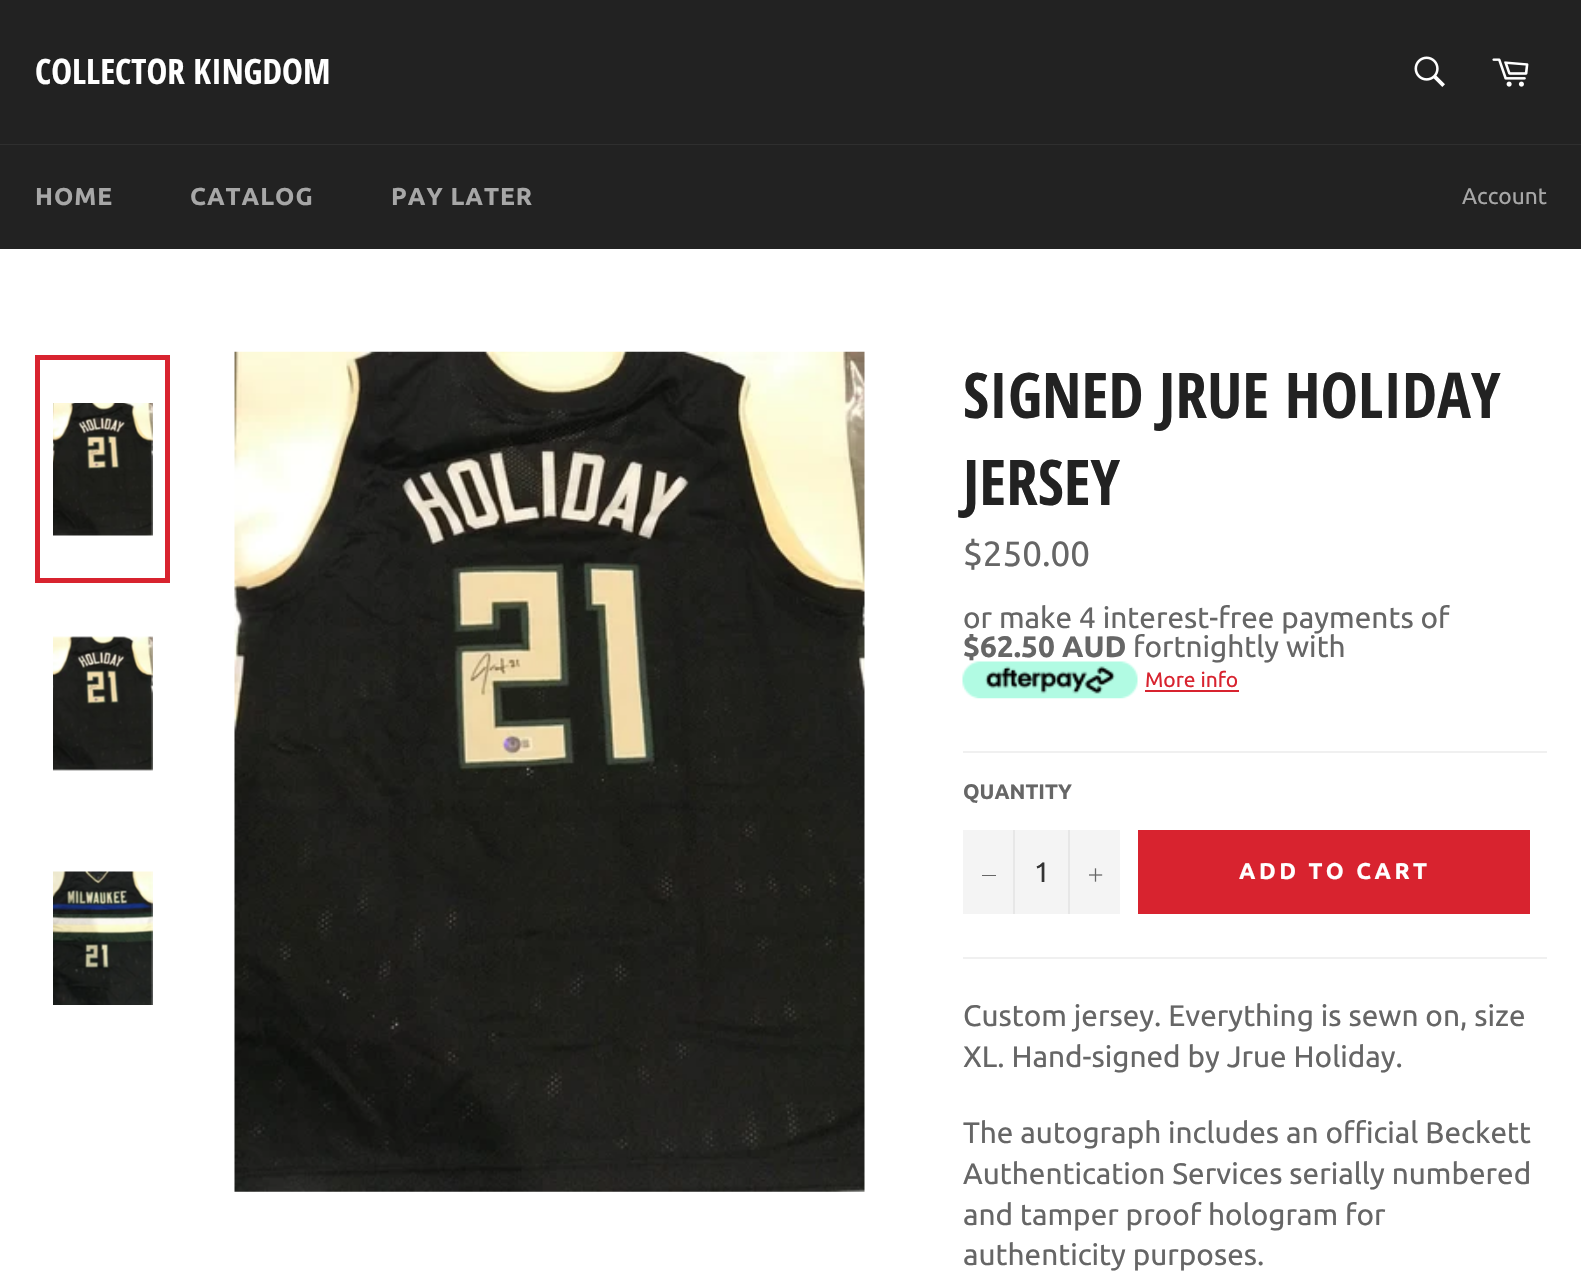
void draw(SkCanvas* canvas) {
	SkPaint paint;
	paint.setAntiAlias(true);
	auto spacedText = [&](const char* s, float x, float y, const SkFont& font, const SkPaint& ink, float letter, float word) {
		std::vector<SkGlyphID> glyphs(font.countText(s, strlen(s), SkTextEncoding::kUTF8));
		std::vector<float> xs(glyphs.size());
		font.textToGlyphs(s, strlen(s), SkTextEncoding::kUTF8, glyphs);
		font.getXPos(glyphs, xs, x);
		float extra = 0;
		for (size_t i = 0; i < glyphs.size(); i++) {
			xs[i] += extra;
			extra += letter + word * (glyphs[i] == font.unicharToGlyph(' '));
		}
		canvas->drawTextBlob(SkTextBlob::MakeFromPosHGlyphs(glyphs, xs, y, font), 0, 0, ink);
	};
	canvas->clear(0xff222222);
	SkFont f1(fontMgr->matchFamilyStyle("Open Sans Condensed", SkFontStyle::Bold()), 35);
	f1.setSubpixel(true);
	paint.setColor(0xffffffff);
	canvas->drawString("COLLECTOR KINGDOM", 35, 84, f1, paint);
	canvas->drawImageRect(SkImages::DeferredFromEncodedData(SkData::MakeFromFileName("img1.png")), SkRect::MakeXYWH(1414, 56, 31, 31), SkSamplingOptions());
	canvas->drawImageRect(SkImages::DeferredFromEncodedData(SkData::MakeFromFileName("img2.png")), SkRect::MakeXYWH(1492, 58, 37, 29), SkSamplingOptions());
	paint.setColor(0xff2f2f2f);
	canvas->drawRect(SkRect::MakeXYWH(0, 144, 1581, 1), paint);
	SkFont f2(fontMgr->matchFamilyStyle("Ubuntu", SkFontStyle::Bold()), 24.5);
	f2.setSubpixel(true);
	paint.setColor(0xffa7a7a7);
	spacedText("HOME", 35, 205, f2, paint, 1, 0);
	spacedText("CATALOG", 190, 205, f2, paint, 1, 0);
	spacedText("PAY LATER", 391, 205, f2, paint, 1, 0);
	SkFont f3(fontMgr->matchFamilyStyle("Ubuntu", SkFontStyle::Normal()), 22.75);
	f3.setSubpixel(true);
	canvas->drawString("Account", 1462, 204, f3, paint);
	paint.setColor(0xffffffff);
	canvas->drawRect(SkRect::MakeXYWH(0, 249, 1581, 1033), paint);
	canvas->drawImageRect(SkImages::DeferredFromEncodedData(SkData::MakeFromFileName("img3.png")), SkRect::MakeXYWH(53, 403, 100, 133), SkSamplingOptions());
	paint.setStroke(true);
	paint.setStrokeWidth(5);
	paint.setColor(0xffd8232f);
	canvas->drawRect(SkRect::MakeXYWH(37.5, 357.5, 130, 223), paint);
	canvas->drawImageRect(SkImages::DeferredFromEncodedData(SkData::MakeFromFileName("img4.png")), SkRect::MakeXYWH(53, 636, 100, 135), SkSamplingOptions());
	canvas->drawImageRect(SkImages::DeferredFromEncodedData(SkData::MakeFromFileName("img5.png")), SkRect::MakeXYWH(53, 871, 100, 134), SkSamplingOptions());
	canvas->drawImageRect(SkImages::DeferredFromEncodedData(SkData::MakeFromFileName("img6.png")), SkRect::MakeXYWH(234, 351, 631, 841), SkSamplingOptions());
	SkFont f4(fontMgr->matchFamilyStyle("Open Sans Condensed", SkFontStyle::Bold()), 63);
	f4.setSubpixel(true);
	paint.setStroke(false);
	paint.setColor(0xff222222);
	canvas->drawString("SIGNED JRUE HOLIDAY", 963, 418, f4, paint);
	canvas->drawString("JERSEY", 963, 505, f4, paint);
	SkFont f5(fontMgr->matchFamilyStyle("Ubuntu", SkFontStyle::Normal()), 35);
	f5.setSubpixel(true);
	paint.setColor(0xff666666);
	canvas->drawString("$250.00", 963, 566, f5, paint);
	SkFont f6(fontMgr->matchFamilyStyle("Ubuntu", SkFontStyle::Normal()), 29.75);
	f6.setSubpixel(true);
	canvas->drawString("or make 4 interest-free payments of", 963, 628, f6, paint);
	SkFont f7(fontMgr->matchFamilyStyle("Ubuntu", SkFontStyle::Bold()), 29.75);
	f7.setSubpixel(true);
	canvas->drawString("$62.50 AUD", 963, 657, f7, paint);
	canvas->drawString("fortnightly with", 1133, 657, f6, paint);
	canvas->drawImageRect(SkImages::DeferredFromEncodedData(SkData::MakeFromFileName("img7.png")), SkRect::MakeXYWH(962, 661, 176, 38), SkSamplingOptions());
	SkFont f8(fontMgr->matchFamilyStyle("Ubuntu", SkFontStyle::Normal()), 21);
	f8.setSubpixel(true);
	paint.setColor(0xffd8232f);
	canvas->drawString("More info", 1145, 687, f8, paint);
	canvas->drawRect(SkRect::MakeXYWH(1145, 690, 94, 2), paint);
	paint.setColor(0xfff0f0f0);
	canvas->drawRect(SkRect::MakeXYWH(963, 751, 584, 2), paint);
	SkFont f9(fontMgr->matchFamilyStyle("Ubuntu", SkFontStyle::Bold()), 21);
	f9.setSubpixel(true);
	paint.setColor(0xff666666);
	canvas->drawString("QUANTITY", 963, 799, f9, paint);
	paint.setColor(0xfff4f4f4);
	canvas->drawRect(SkRect::MakeXYWH(963, 830, 157, 84), paint);
	paint.setColor(0xffe7e7e7);
	canvas->drawRect(SkRect::MakeXYWH(1013, 830, 2, 84), paint);
	paint.setColor(0xff666666);
	canvas->drawRect(SkRect::MakeXYWH(982, 875, 14, 1), paint);
	SkFont f10(fontMgr->matchFamilyStyle("Ubuntu", SkFontStyle::Normal()), 28);
	f10.setSubpixel(true);
	paint.setColor(0xff333333);
	canvas->drawString("1", 1034, 882, f10, paint);
	paint.setColor(0xffe7e7e7);
	canvas->drawRect(SkRect::MakeXYWH(1068, 830, 2, 84), paint);
	canvas->drawImageRect(SkImages::DeferredFromEncodedData(SkData::MakeFromFileName("img8.png")), SkRect::MakeXYWH(1089, 868, 14, 14), SkSamplingOptions());
	paint.setColor(0xffd8232f);
	canvas->drawRect(SkRect::MakeXYWH(1138, 830, 392, 84), paint);
	SkFont f11(fontMgr->matchFamilyStyle("Ubuntu", SkFontStyle::Bold()), 22.75);
	f11.setSubpixel(true);
	paint.setColor(0xffffffff);
	spacedText("ADD TO CART", 1239, 879, f11, paint, 3.5, 0);
	paint.setColor(0xfff0f0f0);
	canvas->drawRect(SkRect::MakeXYWH(963, 957, 584, 2), paint);
	paint.setColor(0xff666666);
	canvas->drawString("Custom jersey. Everything is sewn on, size", 963, 1026, f6, paint);
	canvas->drawString("XL. Hand-signed by Jrue Holiday.", 963, 1067, f6, paint);
	canvas->drawString("The autograph includes an official Beckett", 963, 1143, f6, paint);
	canvas->drawString("Authentication Services serially numbered", 963, 1184, f6, paint);
	canvas->drawString("and tamper proof hologram for", 963, 1225, f6, paint);
	canvas->drawString("authenticity purposes.", 963, 1265, f6, paint);
}
